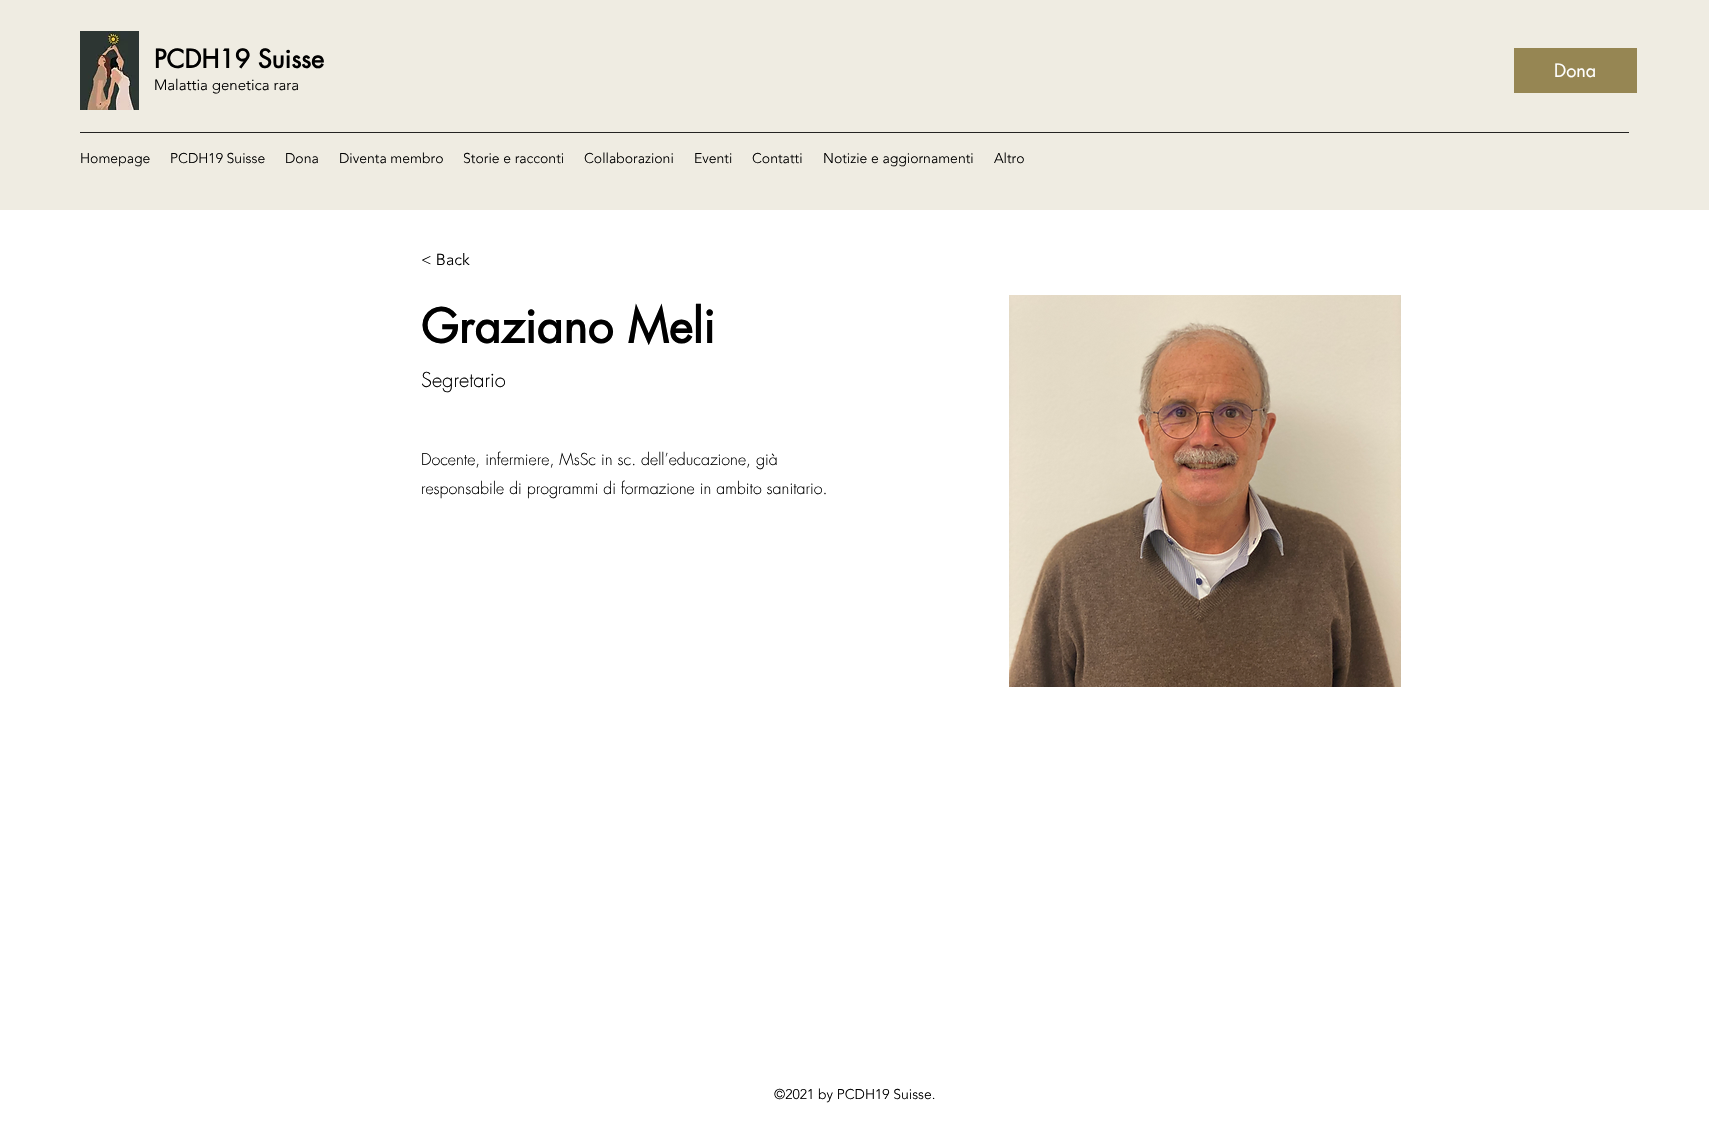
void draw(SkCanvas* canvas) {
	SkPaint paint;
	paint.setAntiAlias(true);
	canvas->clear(0xffffffff);
	paint.setColor(0xffefece2);
	canvas->drawRect(SkRect::MakeXYWH(0, 0, 1709, 210), paint);
	canvas->drawImageRect(SkImages::DeferredFromEncodedData(SkData::MakeFromFileName("img1.png")), SkRect::MakeXYWH(80, 31, 59, 79), SkSamplingOptions());
	SkFont f1(fontMgr->matchFamilyStyle("futura", SkFontStyle::Bold()), 25);
	f1.setSubpixel(true);
	paint.setColor(0xff000000);
	canvas->drawString("PCDH19 Suisse", 154, 68, f1, paint);
	SkFont f2(fontMgr->matchFamilyStyle("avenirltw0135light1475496", SkFontStyle(300, SkFontStyle::kNormal_Width, SkFontStyle::kUpright_Slant)), 15);
	f2.setSubpixel(true);
	canvas->drawString("Malattia genetica rara", 154, 90, f2, paint);
	paint.setColor(0xff968653);
	canvas->drawRect(SkRect::MakeXYWH(1514, 48, 123, 45), paint);
	SkFont f3(fontMgr->matchFamilyStyle("futura", SkFontStyle::Normal()), 18);
	f3.setSubpixel(true);
	paint.setColor(0xffffffff);
	canvas->drawString("Dona", 1554, 77, f3, paint);
	paint.setColor(0xff242322);
	canvas->drawRect(SkRect::MakeXYWH(80, 132, 1549, 1), paint);
	SkFont f4(fontMgr->matchFamilyStyle("avenirltw0135light1475496", SkFontStyle(300, SkFontStyle::kNormal_Width, SkFontStyle::kUpright_Slant)), 14);
	f4.setSubpixel(true);
	paint.setColor(0xff000000);
	canvas->drawString("Homepage", 80, 163, f4, paint);
	canvas->drawString("PCDH19 Suisse", 170, 163, f4, paint);
	canvas->drawString("Dona", 285, 163, f4, paint);
	canvas->drawString("Diventa membro", 339, 163, f4, paint);
	canvas->drawString("Storie e racconti", 463, 163, f4, paint);
	canvas->drawString("Collaborazioni", 584, 163, f4, paint);
	canvas->drawString("Eventi", 694, 163, f4, paint);
	canvas->drawString("Contatti", 752, 163, f4, paint);
	canvas->drawString("Notizie e aggiornamenti", 823, 163, f4, paint);
	canvas->drawString("Altro", 994, 163, f4, paint);
	SkFont f5(fontMgr->matchFamilyStyle("avenirltw0135light1475496", SkFontStyle(300, SkFontStyle::kNormal_Width, SkFontStyle::kUpright_Slant)), 16);
	f5.setSubpixel(true);
	canvas->drawString("< Back", 421, 265, f5, paint);
	SkFont f6(fontMgr->matchFamilyStyle("futura", SkFontStyle::Bold()), 46);
	f6.setSubpixel(true);
	canvas->drawString("Graziano Meli", 421, 343, f6, paint);
	SkFont f7(fontMgr->matchFamilyStyle("futura", SkFontStyle(300, SkFontStyle::kNormal_Width, SkFontStyle::kUpright_Slant)), 20);
	f7.setSubpixel(true);
	canvas->drawString("Segretario", 421, 387, f7, paint);
	SkFont f8(fontMgr->matchFamilyStyle("futura", SkFontStyle(300, SkFontStyle::kNormal_Width, SkFontStyle::kUpright_Slant)), 16);
	f8.setSubpixel(true);
	canvas->drawString("Docente, infermiere, MsSc in sc. dell’educazione, già", 421, 465, f8, paint);
	canvas->drawString("responsabile di programmi di formazione in ambito sanitario.", 421, 494, f8, paint);
	canvas->drawImageRect(SkImages::DeferredFromEncodedData(SkData::MakeFromFileName("img2.png")), SkRect::MakeXYWH(1009, 295, 392, 392), SkSamplingOptions());
	canvas->drawString("©2021 by PCDH19 Suisse.", 774, 1099, f4, paint);
}
